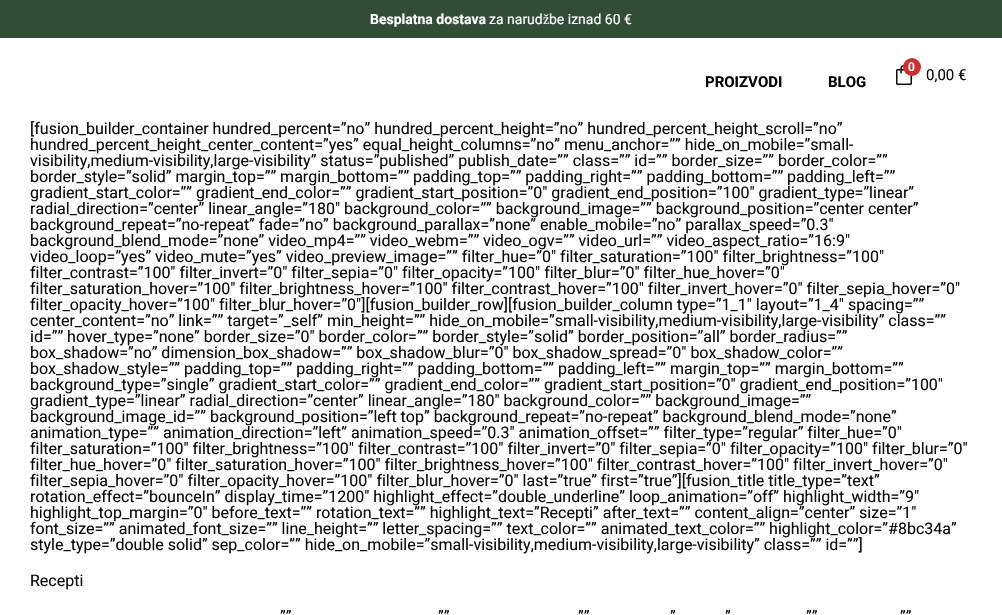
void draw(SkCanvas* canvas) {
	SkPaint paint;
	paint.setAntiAlias(true);
	canvas->clear(0xffffffff);
	paint.setColor(0xff314d36);
	canvas->drawRect(SkRect::MakeXYWH(0, 0, 1002, 38), paint);
	SkFont f1(fontMgr->matchFamilyStyle("Roboto", SkFontStyle::Bold()), 14);
	f1.setSubpixel(true);
	paint.setColor(0xffffffff);
	canvas->drawString("Besplatna dostava", 370, 24, f1, paint);
	SkFont f2(fontMgr->matchFamilyStyle("Roboto", SkFontStyle::Normal()), 14);
	f2.setSubpixel(true);
	canvas->drawString("za narud", 489, 24, f2, paint);
	SkFont f3(fontMgr->matchFamilyStyle("Liberation Serif", SkFontStyle::Normal()), 14);
	f3.setSubpixel(true);
	canvas->drawString("ž", 543, 24, f3, paint);
	canvas->drawString("be iznad 60 €", 549, 24, f2, paint);
	SkFont f4(fontMgr->matchFamilyStyle("Roboto", SkFontStyle::Bold()), 15);
	f4.setSubpixel(true);
	paint.setColor(0xff000000);
	canvas->drawString("PROIZVODI", 705, 87, f4, paint);
	canvas->drawString("BLOG", 828, 87, f4, paint);
	canvas->drawImageRect(SkImages::DeferredFromEncodedData(SkData::MakeFromFileName("img1.png")), SkRect::MakeXYWH(896, 65, 16, 20), SkSamplingOptions());
	paint.setColor(0xffcf2e2e);
	canvas->drawCircle(912, 67, 9, paint);
	SkFont f5(fontMgr->matchFamilyStyle("Roboto", SkFontStyle(600, SkFontStyle::kNormal_Width, SkFontStyle::kUpright_Slant)), 12);
	f5.setSubpixel(true);
	paint.setColor(0xffffffff);
	canvas->drawString("0", 908, 71, f5, paint);
	SkFont f6(fontMgr->matchFamilyStyle("Roboto", SkFontStyle::Normal()), 15);
	f6.setSubpixel(true);
	paint.setColor(0xff0a0a0a);
	canvas->drawString("0,00 €", 926, 80, f6, paint);
	SkFont f7(fontMgr->matchFamilyStyle("Roboto", SkFontStyle::Normal()), 16);
	f7.setSubpixel(true);
	canvas->drawString("[fusion_builder_container hundred_percent=”no” hundred_percent_height=”no” hundred_percent_height_scroll=”no”", 30, 134, f7, paint);
	canvas->drawString("hundred_percent_height_center_content=”yes” equal_height_columns=”no” menu_anchor=”” hide_on_mobile=”small-", 30, 150, f7, paint);
	canvas->drawString("visibility,medium-visibility,large-visibility” status=”published” publish_date=”” class=”” id=”” border_size=”” border_color=””", 30, 166, f7, paint);
	canvas->drawString("border_style=”solid” margin_top=”” margin_bottom=”” padding_top=”” padding_right=”” padding_bottom=”” padding_left=””", 30, 182, f7, paint);
	canvas->drawString("gradient_start_color=”” gradient_end_color=”” gradient_start_position=”0″ gradient_end_position=”100″ gradient_type=”linear”", 30, 198, f7, paint);
	canvas->drawString("radial_direction=”center” linear_angle=”180″ background_color=”” background_image=”” background_position=”center center”", 30, 214, f7, paint);
	canvas->drawString("background_repeat=”no-repeat” fade=”no” background_parallax=”none” enable_mobile=”no” parallax_speed=”0.3″", 30, 230, f7, paint);
	canvas->drawString("background_blend_mode=”none” video_mp4=”” video_webm=”” video_ogv=”” video_url=”” video_aspect_ratio=”16:9″", 30, 246, f7, paint);
	canvas->drawString("video_loop=”yes” video_mute=”yes” video_preview_image=”” filter_hue=”0″ filter_saturation=”100″ filter_brightness=”100″", 30, 262, f7, paint);
	canvas->drawString("filter_contrast=”100″ filter_invert=”0″ filter_sepia=”0″ filter_opacity=”100″ filter_blur=”0″ filter_hue_hover=”0″", 30, 278, f7, paint);
	canvas->drawString("filter_saturation_hover=”100″ filter_brightness_hover=”100″ filter_contrast_hover=”100″ filter_invert_hover=”0″ filter_sepia_hover=”0″", 30, 294, f7, paint);
	canvas->drawString("filter_opacity_hover=”100″ filter_blur_hover=”0″][fusion_builder_row][fusion_builder_column type=”1_1″ layout=”1_4″ spacing=””", 30, 310, f7, paint);
	canvas->drawString("center_content=”no” link=”” target=”_self” min_height=”” hide_on_mobile=”small-visibility,medium-visibility,large-visibility” class=””", 30, 326, f7, paint);
	canvas->drawString("id=”” hover_type=”none” border_size=”0″ border_color=”” border_style=”solid” border_position=”all” border_radius=””", 30, 342, f7, paint);
	canvas->drawString("box_shadow=”no” dimension_box_shadow=”” box_shadow_blur=”0″ box_shadow_spread=”0″ box_shadow_color=””", 30, 358, f7, paint);
	canvas->drawString("box_shadow_style=”” padding_top=”” padding_right=”” padding_bottom=”” padding_left=”” margin_top=”” margin_bottom=””", 30, 374, f7, paint);
	canvas->drawString("background_type=”single” gradient_start_color=”” gradient_end_color=”” gradient_start_position=”0″ gradient_end_position=”100″", 30, 390, f7, paint);
	canvas->drawString("gradient_type=”linear” radial_direction=”center” linear_angle=”180″ background_color=”” background_image=””", 30, 406, f7, paint);
	canvas->drawString("background_image_id=”” background_position=”left top” background_repeat=”no-repeat” background_blend_mode=”none”", 30, 422, f7, paint);
	canvas->drawString("animation_type=”” animation_direction=”left” animation_speed=”0.3″ animation_offset=”” filter_type=”regular” filter_hue=”0″", 30, 438, f7, paint);
	canvas->drawString("filter_saturation=”100″ filter_brightness=”100″ filter_contrast=”100″ filter_invert=”0″ filter_sepia=”0″ filter_opacity=”100″ filter_blur=”0″", 30, 454, f7, paint);
	canvas->drawString("filter_hue_hover=”0″ filter_saturation_hover=”100″ filter_brightness_hover=”100″ filter_contrast_hover=”100″ filter_invert_hover=”0″", 30, 470, f7, paint);
	canvas->drawString("filter_sepia_hover=”0″ filter_opacity_hover=”100″ filter_blur_hover=”0″ last=”true” first=”true”][fusion_title title_type=”text”", 30, 486, f7, paint);
	canvas->drawString("rotation_effect=”bounceIn” display_time=”1200″ highlight_effect=”double_underline” loop_animation=”off” highlight_width=”9″", 30, 502, f7, paint);
	canvas->drawString("highlight_top_margin=”0″ before_text=”” rotation_text=”” highlight_text=”Recepti” after_text=”” content_align=”center” size=”1″", 30, 518, f7, paint);
	canvas->drawString("font_size=”” animated_font_size=”” line_height=”” letter_spacing=”” text_color=”” animated_text_color=”” highlight_color=”#8bc34a”", 30, 534, f7, paint);
	canvas->drawString("style_type=”double solid” sep_color=”” hide_on_mobile=”small-visibility,medium-visibility,large-visibility” class=”” id=””]", 30, 550, f7, paint);
	canvas->drawString("Recepti", 30, 586, f7, paint);
	canvas->drawString("””", 280, 622, f7, paint);
	canvas->drawString("””", 438, 622, f7, paint);
	canvas->drawString("””", 578, 622, f7, paint);
	canvas->drawString("”", 670, 622, f7, paint);
	canvas->drawString("”", 725, 622, f7, paint);
	canvas->drawString("””", 806, 622, f7, paint);
	canvas->drawString("””", 900, 622, f7, paint);
}
